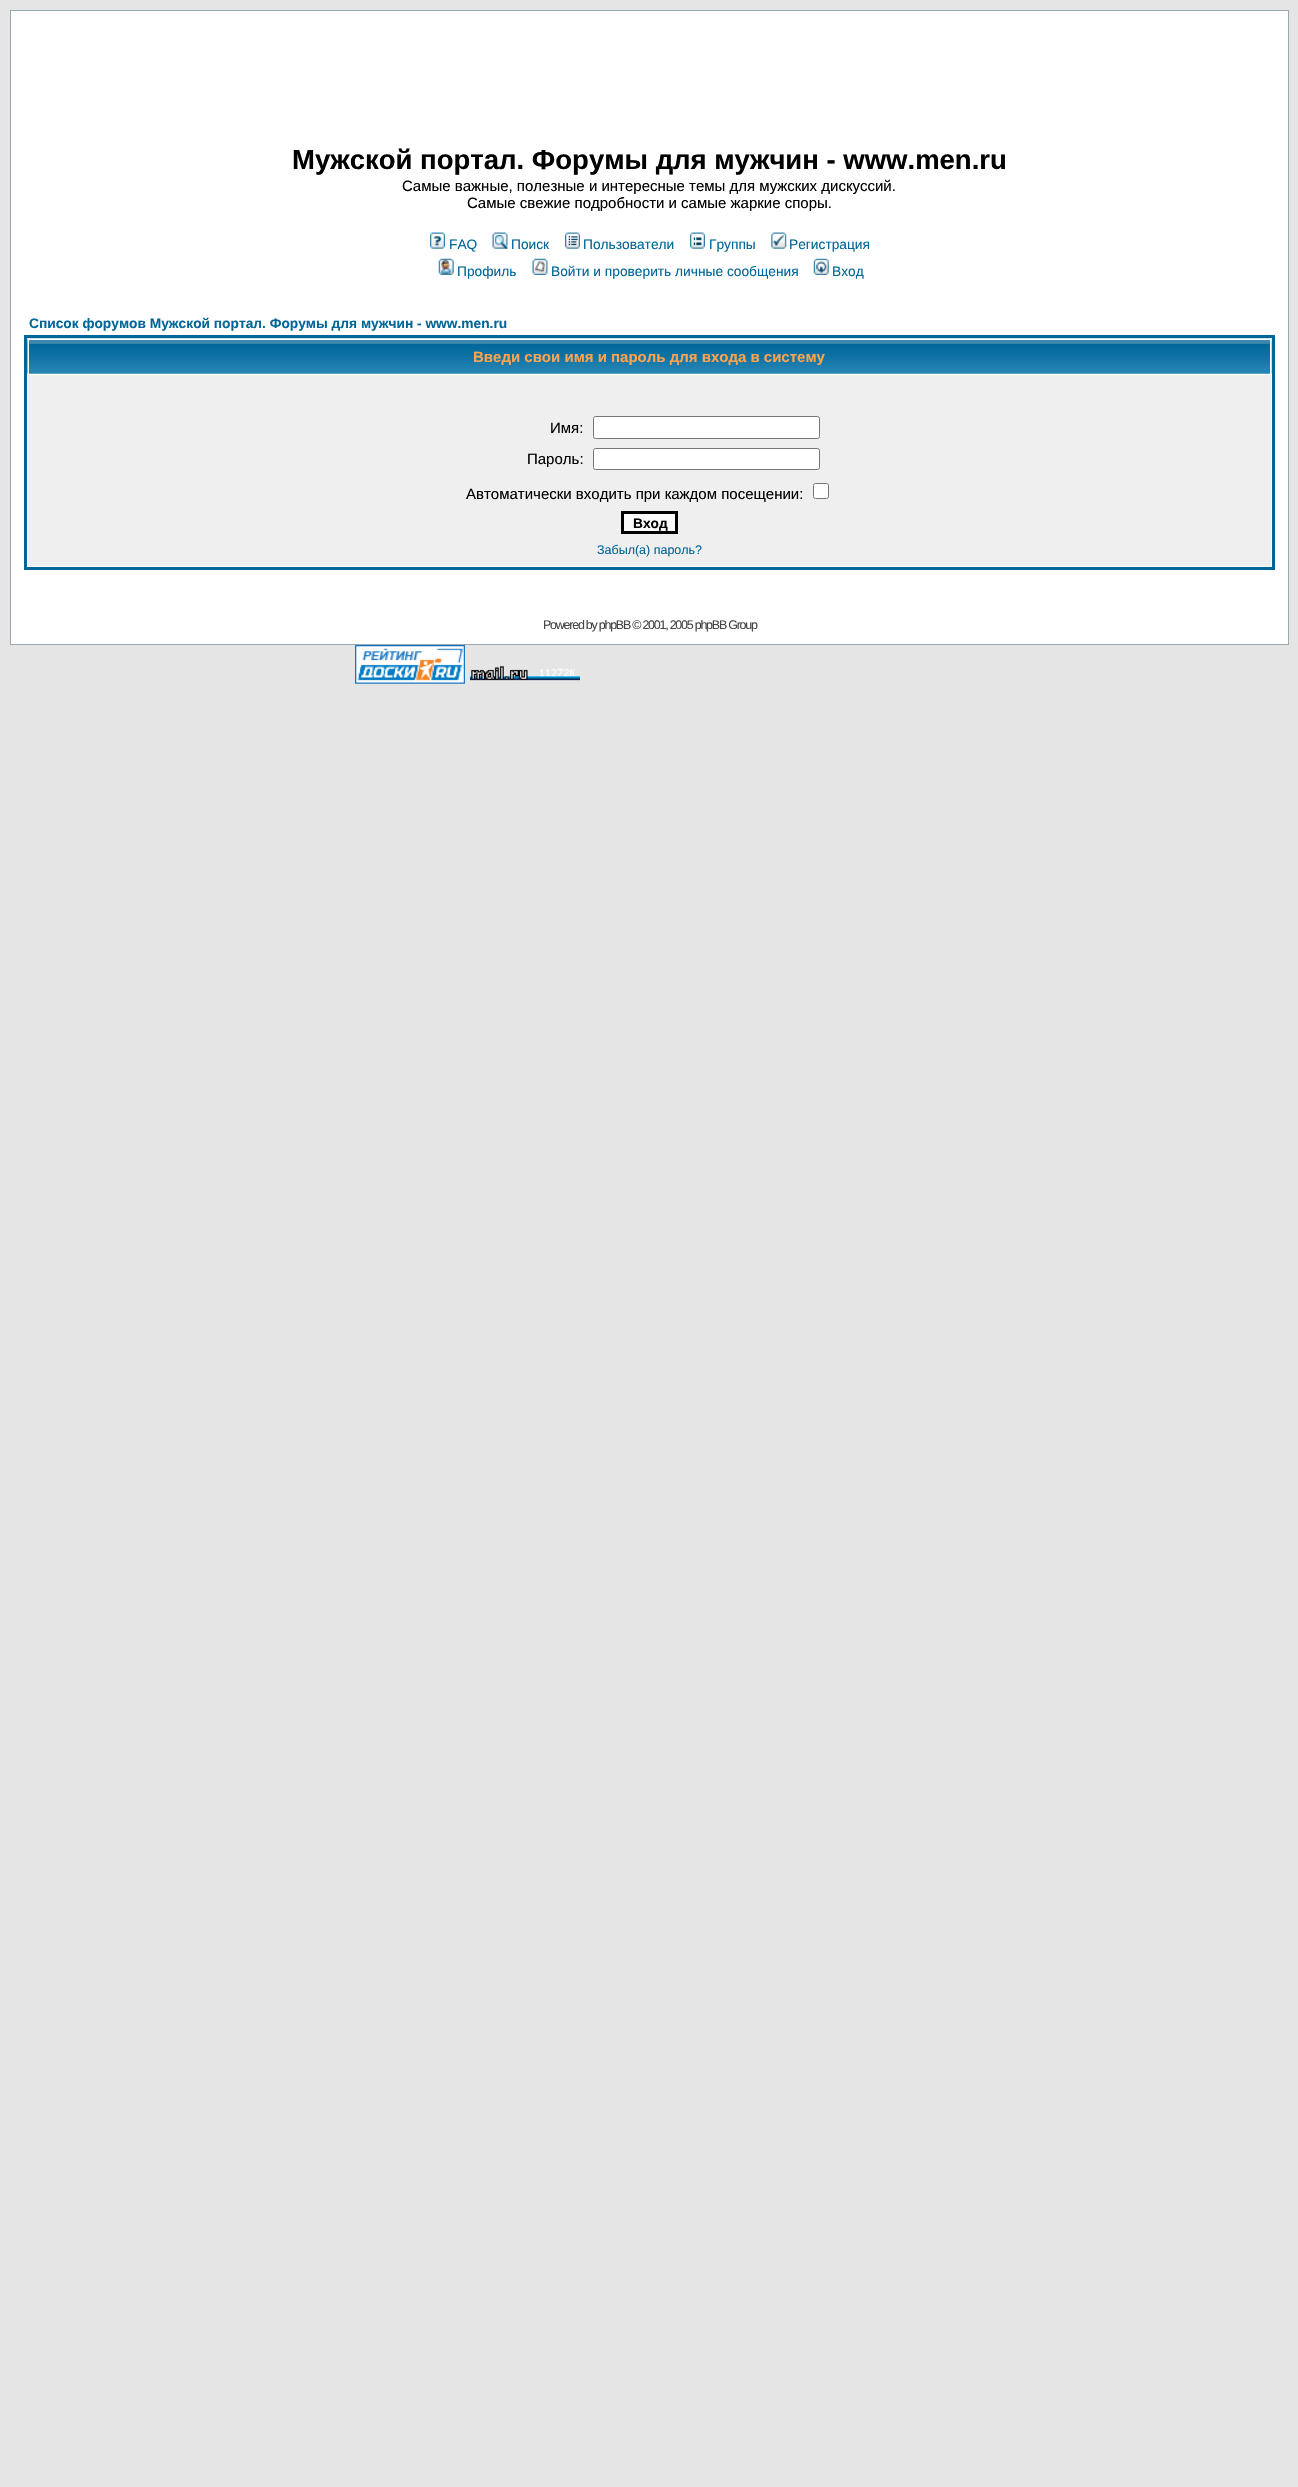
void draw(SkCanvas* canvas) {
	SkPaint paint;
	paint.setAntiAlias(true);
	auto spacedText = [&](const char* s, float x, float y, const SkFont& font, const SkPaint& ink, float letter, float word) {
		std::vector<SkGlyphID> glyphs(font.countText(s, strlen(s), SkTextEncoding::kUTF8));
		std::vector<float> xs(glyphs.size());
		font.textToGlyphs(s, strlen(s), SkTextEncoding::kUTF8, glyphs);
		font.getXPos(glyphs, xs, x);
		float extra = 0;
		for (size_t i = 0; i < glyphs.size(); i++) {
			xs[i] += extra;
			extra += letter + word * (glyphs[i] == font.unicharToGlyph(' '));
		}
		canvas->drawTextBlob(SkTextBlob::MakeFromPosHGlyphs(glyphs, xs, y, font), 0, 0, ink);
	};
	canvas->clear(0xffe5e5e5);
	paint.setColor(0xffffffff);
	canvas->drawRect(SkRect::MakeXYWH(10.5, 10.5, 1278, 634), paint);
	paint.setStroke(true);
	paint.setStrokeWidth(1);
	paint.setColor(0xff98aab1);
	canvas->drawRect(SkRect::MakeXYWH(10.5, 10.5, 1278, 634), paint);
	SkFont f1(fontMgr->matchFamilyStyle("Liberation Sans", SkFontStyle::Bold()), 27.5);
	f1.setSubpixel(true);
	paint.setStroke(false);
	paint.setColor(0xff000000);
	canvas->drawString("Мужской портал. Форумы для мужчин - www.men.ru", 292, 169, f1, paint);
	SkFont f2(fontMgr->matchFamilyStyle("Liberation Sans", SkFontStyle::Normal()), 15);
	f2.setSubpixel(true);
	canvas->drawString("Самые важные, полезные и интересные темы для мужских дискуссий.", 402, 191, f2, paint);
	canvas->drawString("Самые свежие подробности и самые жаркие споры.", 467, 208, f2, paint);
	canvas->drawImageRect(SkImages::DeferredFromEncodedData(SkData::MakeFromFileName("img1.png")), SkRect::MakeXYWH(430, 232, 15, 17), SkSamplingOptions());
	SkFont f3(fontMgr->matchFamilyStyle("Liberation Sans", SkFontStyle::Normal()), 13.75);
	f3.setSubpixel(true);
	paint.setColor(0xff006699);
	canvas->drawString("FAQ", 449, 249, f3, paint);
	canvas->drawImageRect(SkImages::DeferredFromEncodedData(SkData::MakeFromFileName("img2.png")), SkRect::MakeXYWH(492, 232, 16, 17), SkSamplingOptions());
	canvas->drawString("Поиск", 511, 249, f3, paint);
	canvas->drawImageRect(SkImages::DeferredFromEncodedData(SkData::MakeFromFileName("img3.png")), SkRect::MakeXYWH(565, 232, 15, 17), SkSamplingOptions());
	canvas->drawString("Пользователи", 583, 249, f3, paint);
	canvas->drawImageRect(SkImages::DeferredFromEncodedData(SkData::MakeFromFileName("img4.png")), SkRect::MakeXYWH(690, 232, 15, 17), SkSamplingOptions());
	canvas->drawString("Группы", 709, 249, f3, paint);
	canvas->drawImageRect(SkImages::DeferredFromEncodedData(SkData::MakeFromFileName("img5.png")), SkRect::MakeXYWH(771, 232, 16, 17), SkSamplingOptions());
	canvas->drawString("Регистрация", 789, 249, f3, paint);
	canvas->drawImageRect(SkImages::DeferredFromEncodedData(SkData::MakeFromFileName("img6.png")), SkRect::MakeXYWH(438, 258, 16, 17), SkSamplingOptions());
	canvas->drawString("Профиль", 457, 276, f3, paint);
	canvas->drawImageRect(SkImages::DeferredFromEncodedData(SkData::MakeFromFileName("img7.png")), SkRect::MakeXYWH(532, 258, 16, 17), SkSamplingOptions());
	canvas->drawString("Войти и проверить личные сообщения", 551, 276, f3, paint);
	canvas->drawImageRect(SkImages::DeferredFromEncodedData(SkData::MakeFromFileName("img8.png")), SkRect::MakeXYWH(813, 258, 16, 17), SkSamplingOptions());
	canvas->drawString("Вход", 832, 276, f3, paint);
	SkFont f4(fontMgr->matchFamilyStyle("Liberation Sans", SkFontStyle::Bold()), 13.75);
	f4.setSubpixel(true);
	canvas->drawString("Список форумов Мужской портал. Форумы для мужчин - www.men.ru", 29, 328, f4, paint);
	paint.setStroke(true);
	paint.setStrokeWidth(3);
	canvas->drawRect(SkRect::MakeXYWH(25.5, 336.5, 1248, 232), paint);
	canvas->drawImageRect(SkImages::DeferredFromEncodedData(SkData::MakeFromFileName("img9.png")), SkRect::MakeXYWH(27, 338, 1245, 36), SkSamplingOptions());
	paint.setStroke(false);
	paint.setColor(0xffffffff);
	canvas->drawRect(SkRect::MakeXYWH(28, 339, 1243, 1), paint);
	canvas->drawRect(SkRect::MakeXYWH(1270, 339, 1, 35), paint);
	canvas->drawRect(SkRect::MakeXYWH(28, 339, 1, 35), paint);
	SkFont f5(fontMgr->matchFamilyStyle("Liberation Sans", SkFontStyle::Bold()), 15);
	f5.setSubpixel(true);
	paint.setColor(0xffffa34f);
	canvas->drawString("Введи свои имя и пароль для входа в систему", 473, 362, f5, paint);
	paint.setColor(0xffefefef);
	canvas->drawRect(SkRect::MakeXYWH(28, 375, 1243, 191), paint);
	paint.setColor(0xff000000);
	canvas->drawString("Имя:", 550, 433, f2, paint);
	paint.setColor(0xffffffff);
	canvas->drawRoundRect(SkRect::MakeXYWH(593.5, 416.5, 226, 22), 2, 2, paint);
	paint.setStroke(true);
	paint.setStrokeWidth(1);
	paint.setColor(0xff767676);
	canvas->drawRoundRect(SkRect::MakeXYWH(593.5, 416.5, 226, 22), 2, 2, paint);
	paint.setStroke(false);
	paint.setColor(0xff000000);
	canvas->drawString("Пароль:", 527, 464, f2, paint);
	paint.setColor(0xffffffff);
	canvas->drawRoundRect(SkRect::MakeXYWH(593.5, 448.5, 226, 21), 2, 2, paint);
	paint.setStroke(true);
	paint.setColor(0xff767676);
	canvas->drawRoundRect(SkRect::MakeXYWH(593.5, 448.5, 226, 21), 2, 2, paint);
	paint.setStroke(false);
	paint.setColor(0xff000000);
	canvas->drawString("Автоматически входить при каждом посещении:", 466, 499, f2, paint);
	paint.setColor(0xffffffff);
	canvas->drawRoundRect(SkRect::MakeXYWH(813.5, 483.5, 15, 15), 2, 2, paint);
	paint.setStroke(true);
	paint.setColor(0xff767676);
	canvas->drawRoundRect(SkRect::MakeXYWH(813.5, 483.5, 15, 15), 2, 2, paint);
	paint.setStroke(false);
	paint.setColor(0xfffafafa);
	canvas->drawRect(SkRect::MakeXYWH(622.5, 512.5, 54, 20), paint);
	paint.setStroke(true);
	paint.setStrokeWidth(3);
	paint.setColor(0xff000000);
	canvas->drawRect(SkRect::MakeXYWH(622.5, 512.5, 54, 20), paint);
	paint.setStroke(false);
	canvas->drawString("Вход", 633, 528, f4, paint);
	SkFont f6(fontMgr->matchFamilyStyle("Liberation Sans", SkFontStyle::Normal()), 12.5);
	f6.setSubpixel(true);
	paint.setColor(0xff006699);
	canvas->drawString("Забыл(а) пароль?", 597, 554, f6, paint);
	paint.setColor(0xff444444);
	spacedText("Powered by phpBB © 2001, 2005 phpBB Group", 543, 629, f6, paint, -1.25, 0);
	canvas->drawImageRect(SkImages::DeferredFromEncodedData(SkData::MakeFromFileName("img10.png")), SkRect::MakeXYWH(355, 645, 110, 39), SkSamplingOptions());
	canvas->drawImageRect(SkImages::DeferredFromEncodedData(SkData::MakeFromFileName("img11.png")), SkRect::MakeXYWH(470, 666, 110, 15), SkSamplingOptions());
}
